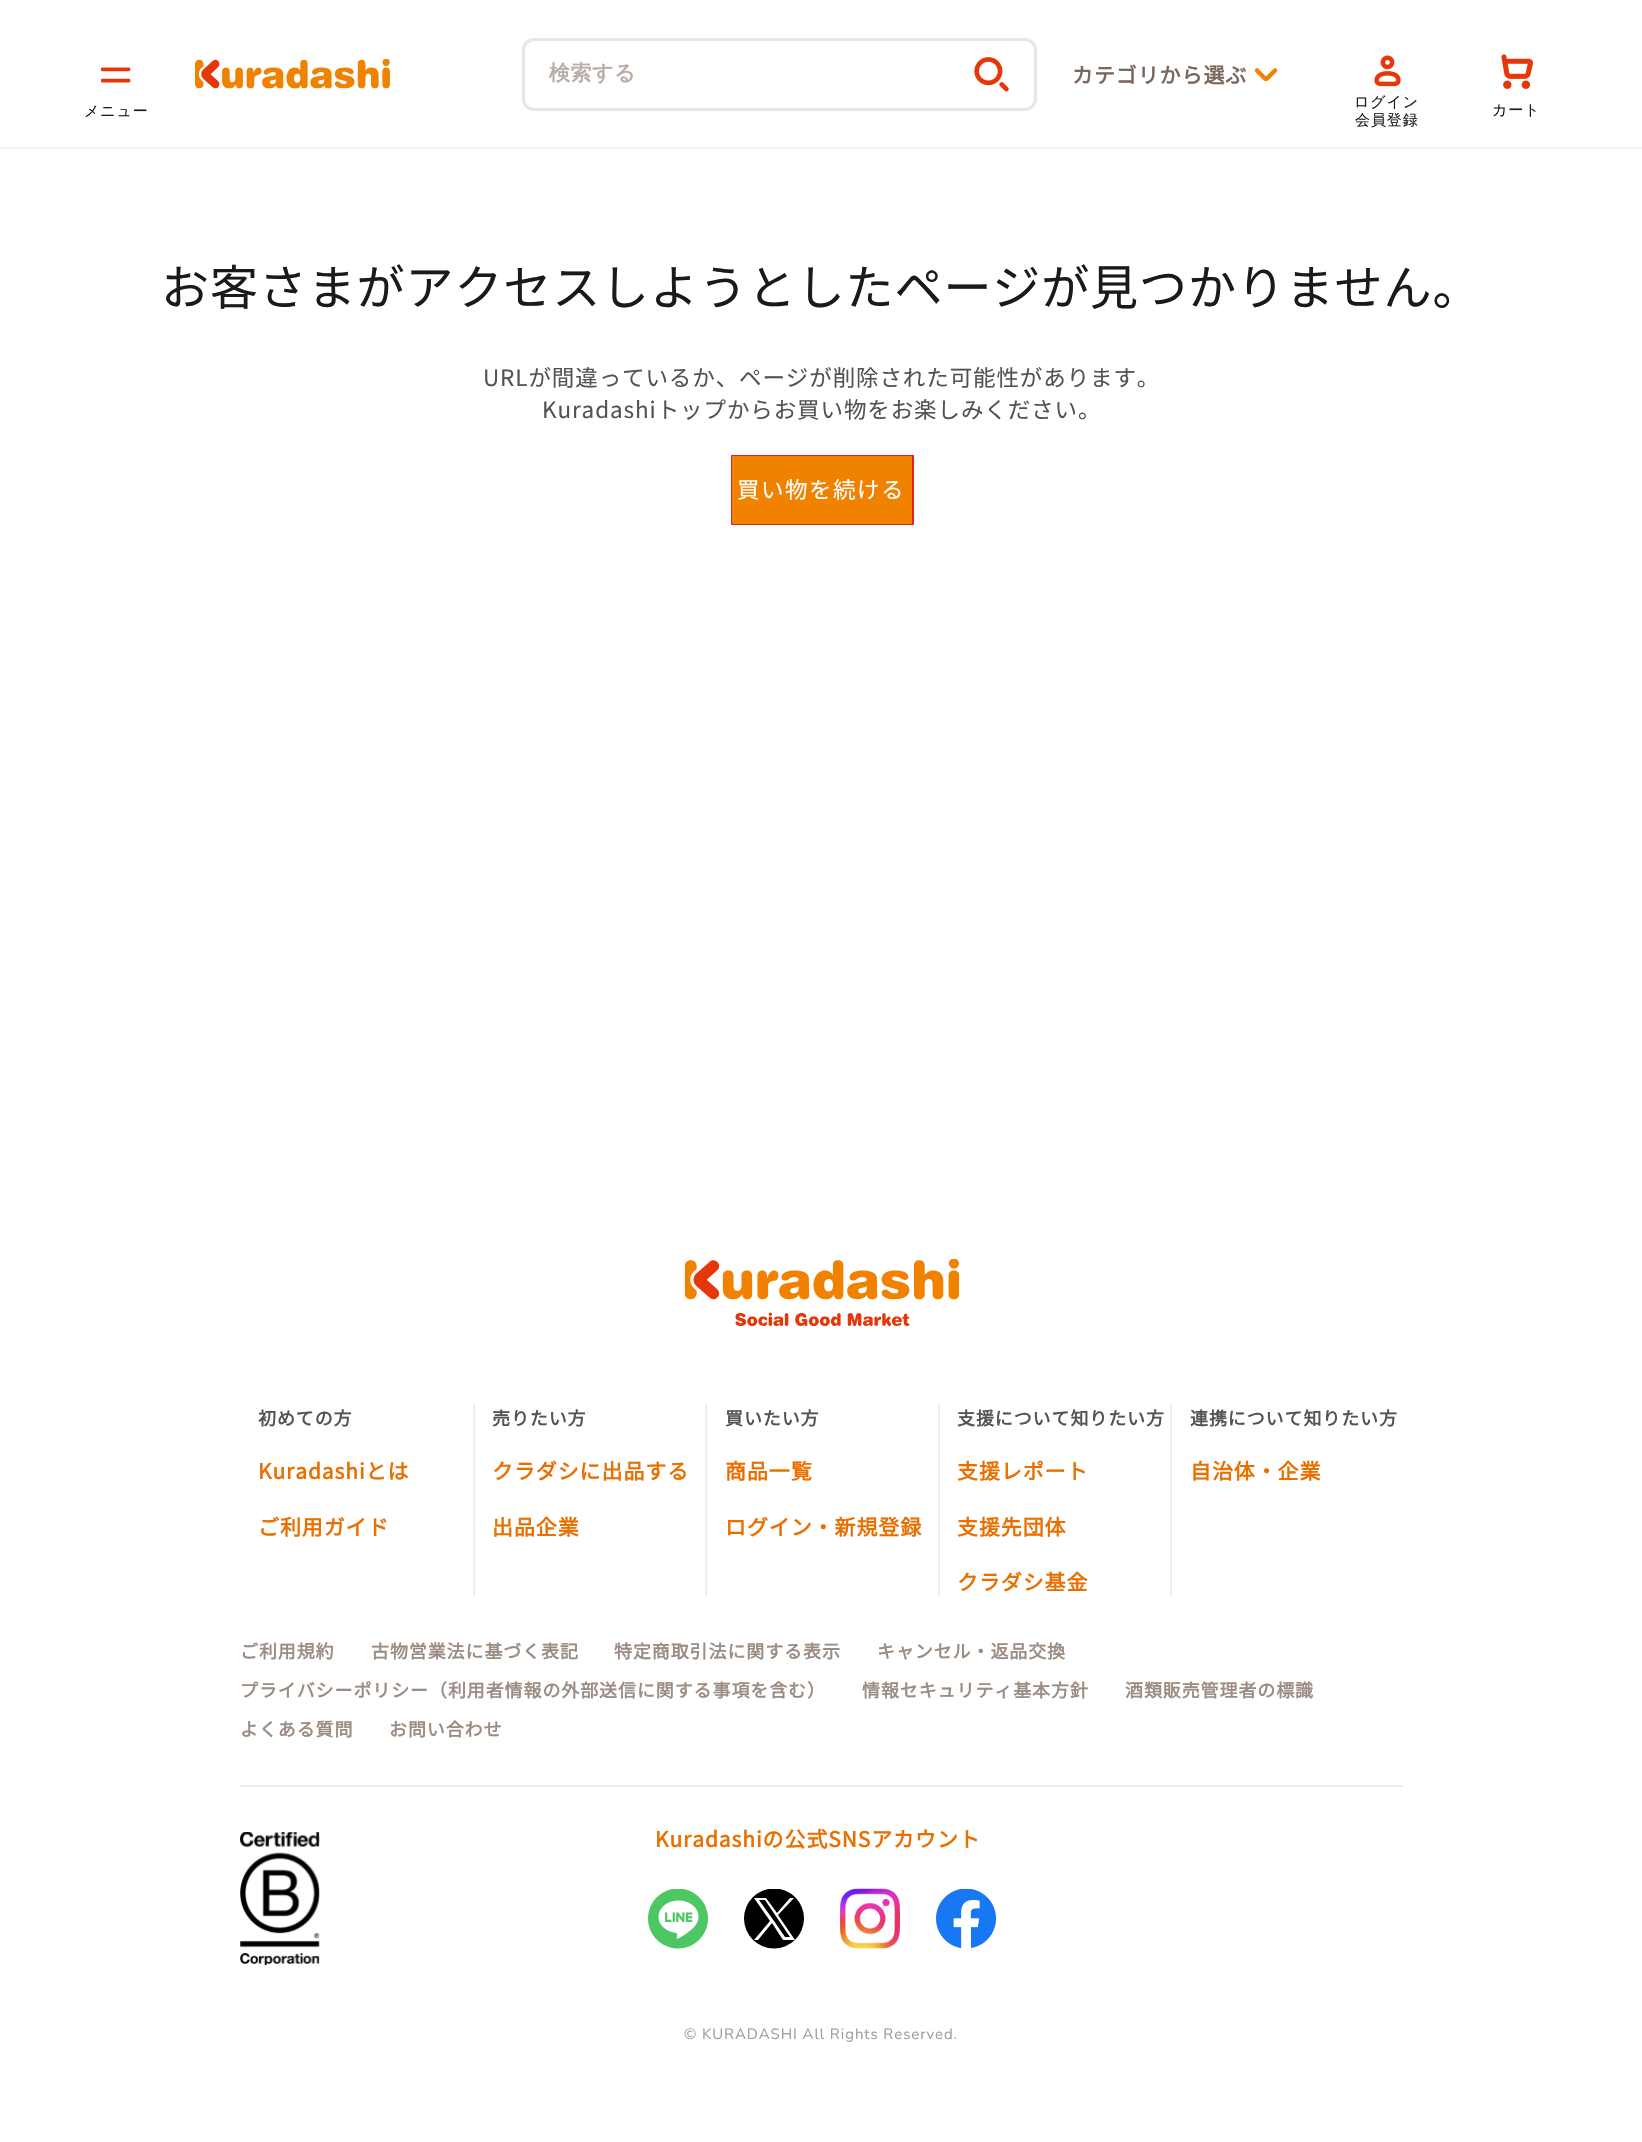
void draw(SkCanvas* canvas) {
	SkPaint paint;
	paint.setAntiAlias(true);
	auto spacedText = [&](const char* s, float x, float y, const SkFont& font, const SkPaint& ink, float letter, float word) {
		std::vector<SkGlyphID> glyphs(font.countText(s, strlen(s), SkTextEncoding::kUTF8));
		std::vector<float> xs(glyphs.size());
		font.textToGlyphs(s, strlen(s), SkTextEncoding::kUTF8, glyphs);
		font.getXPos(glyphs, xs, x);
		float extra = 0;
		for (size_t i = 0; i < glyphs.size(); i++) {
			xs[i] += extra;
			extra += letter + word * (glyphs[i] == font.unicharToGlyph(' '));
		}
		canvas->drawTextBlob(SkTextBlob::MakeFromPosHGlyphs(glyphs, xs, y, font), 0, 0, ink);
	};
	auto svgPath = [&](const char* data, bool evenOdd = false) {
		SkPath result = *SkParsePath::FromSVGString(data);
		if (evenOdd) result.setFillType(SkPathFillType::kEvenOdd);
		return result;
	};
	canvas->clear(0xffffffff);
	paint.setColor(0xfff4f2f1);
	canvas->drawRect(SkRect::MakeXYWH(0, 147, 1642, 2), paint);
	canvas->drawImageRect(SkImages::DeferredFromEncodedData(SkData::MakeFromFileName("img1.png")), SkRect::MakeXYWH(101, 67, 30, 16), SkSamplingOptions());
	SkFont f1(fontMgr->matchFamilyStyle("WenQuanYi Zen Hei", SkFontStyle(500, SkFontStyle::kNormal_Width, SkFontStyle::kUpright_Slant)), 15);
	f1.setSubpixel(true);
	paint.setColor(0xff1a1b18);
	spacedText("メニュー", 84, 116, f1, paint, 0.9, 0);
	canvas->drawImageRect(SkImages::DeferredFromEncodedData(SkData::MakeFromFileName("img2.png")), SkRect::MakeXYWH(195, 59, 195, 30), SkSamplingOptions());
	paint.setStroke(true);
	paint.setStrokeWidth(3);
	paint.setColor(0xffe9e5e3);
	canvas->drawRoundRect(SkRect::MakeXYWH(523.5, 39.5, 512, 70), 10.5, 10.5, paint);
	SkFont f2(fontMgr->matchFamilyStyle("WenQuanYi Zen Hei", SkFontStyle::Bold()), 21);
	f2.setSubpixel(true);
	paint.setStroke(false);
	paint.setColor(0xffb9aea7);
	spacedText("検索する", 549, 80, f2, paint, 0.5, 0);
	canvas->drawImageRect(SkImages::DeferredFromEncodedData(SkData::MakeFromFileName("img3.png")), SkRect::MakeXYWH(974, 57, 35, 35), SkSamplingOptions());
	SkFont f3(fontMgr->matchFamilyStyle("Noto Sans JP", SkFontStyle::Bold()), 21);
	f3.setSubpixel(true);
	paint.setColor(0xff7b685c);
	spacedText("カテゴリから選ぶ", 1072, 83, f3, paint, 0.9, 0);
	paint.setStroke(true);
	paint.setStrokeWidth(4.5);
	paint.setStrokeCap(SkPaint::kRound_Cap);
	paint.setColor(0xfff08200);
	canvas->drawPath(svgPath("M1275 70.5L1267 78.5C1266.5 79 1265.5 79 1265 78.5L1257 70.5"), paint);
	canvas->drawImageRect(SkImages::DeferredFromEncodedData(SkData::MakeFromFileName("img4.png")), SkRect::MakeXYWH(1374, 55, 27, 32), SkSamplingOptions());
	paint.setStroke(false);
	paint.setColor(0xff1a1b18);
	spacedText("ログイン", 1354, 107, f1, paint, 0.9, 0);
	spacedText("会員登録", 1355, 125, f1, paint, 0.9, 0);
	canvas->drawImageRect(SkImages::DeferredFromEncodedData(SkData::MakeFromFileName("img5.png")), SkRect::MakeXYWH(1501, 54, 32, 35), SkSamplingOptions());
	spacedText("カート", 1492, 115, f1, paint, 0.9, 0);
	SkFont f4(fontMgr->matchFamilyStyle("Noto Sans JP", SkFontStyle::Normal()), 48);
	f4.setSubpixel(true);
	spacedText("お客さまがアクセスしようとしたページが見つかりません。", 161, 305, f4, paint, 0.9, 0);
	SkFont f5(fontMgr->matchFamilyStyle("Noto Sans JP", SkFontStyle::Normal()), 22.5);
	f5.setSubpixel(true);
	paint.setColor(0xff535452);
	spacedText("URLが間違っているか、ページが削除された可能性があります。", 483, 386, f5, paint, 0.9, 0);
	spacedText("Kuradashiトップからお買い物をお楽しみください。", 542, 418, f5, paint, 0.9, 0);
	paint.setStroke(true);
	paint.setStrokeWidth(2);
	paint.setStrokeCap(SkPaint::kButt_Cap);
	paint.setColor(0xffe22120);
	canvas->drawRect(SkRect::MakeXYWH(732, 456, 181, 68), paint);
	paint.setStroke(false);
	paint.setColor(0xfff08200);
	canvas->drawRect(SkRect::MakeXYWH(732, 456, 180, 68), paint);
	paint.setColor(0xffffffff);
	spacedText("買い物を続ける", 737, 498, f5, paint, 1.5, 0);
	canvas->drawImageRect(SkImages::DeferredFromEncodedData(SkData::MakeFromFileName("img6.png")), SkRect::MakeXYWH(684, 1259, 276, 67), SkSamplingOptions());
	SkFont f6(fontMgr->matchFamilyStyle("Noto Sans JP", SkFontStyle::Bold()), 18);
	f6.setSubpixel(true);
	paint.setColor(0xff535452);
	spacedText("初めての方", 258, 1425, f6, paint, 0.9, 0);
	paint.setColor(0xffe97000);
	spacedText("Kuradashiとは", 258, 1479, f3, paint, 0.9, 0);
	spacedText("ご利用ガイド", 258, 1535, f3, paint, 0.9, 0);
	paint.setColor(0xffeeedec);
	canvas->drawRect(SkRect::MakeXYWH(473, 1404, 2, 192), paint);
	paint.setColor(0xff535452);
	spacedText("売りたい方", 492, 1425, f6, paint, 0.9, 0);
	paint.setColor(0xffe97000);
	spacedText("クラダシに出品する", 492, 1479, f3, paint, 0.9, 0);
	spacedText("出品企業", 492, 1535, f3, paint, 0.9, 0);
	paint.setColor(0xffeeedec);
	canvas->drawRect(SkRect::MakeXYWH(705, 1404, 2, 192), paint);
	paint.setColor(0xff535452);
	spacedText("買いたい方", 725, 1425, f6, paint, 0.9, 0);
	paint.setColor(0xffe97000);
	spacedText("商品一覧", 725, 1479, f3, paint, 0.9, 0);
	spacedText("ログイン・新規登録", 725, 1535, f3, paint, 0.9, 0);
	paint.setColor(0xffeeedec);
	canvas->drawRect(SkRect::MakeXYWH(938, 1404, 2, 192), paint);
	paint.setColor(0xff535452);
	spacedText("支援について知りたい方", 957, 1425, f6, paint, 0.9, 0);
	paint.setColor(0xffe97000);
	spacedText("支援レポート", 957, 1479, f3, paint, 0.9, 0);
	spacedText("支援先団体", 957, 1535, f3, paint, 0.9, 0);
	spacedText("クラダシ基金", 957, 1590, f3, paint, 0.9, 0);
	paint.setColor(0xffeeedec);
	canvas->drawRect(SkRect::MakeXYWH(1170, 1404, 2, 192), paint);
	paint.setColor(0xff535452);
	spacedText("連携について知りたい方", 1190, 1425, f6, paint, 0.9, 0);
	paint.setColor(0xffe97000);
	spacedText("自治体・企業", 1190, 1479, f3, paint, 0.9, 0);
	paint.setColor(0xffeeedec);
	canvas->drawRect(SkRect::MakeXYWH(240, 1785, 1163, 2), paint);
	paint.setColor(0xff9c8c82);
	spacedText("ご利用規約", 240, 1658, f6, paint, 0.9, 0);
	spacedText("古物営業法に基づく表記", 371, 1658, f6, paint, 0.9, 0);
	spacedText("特定商取引法に関する表示", 614, 1658, f6, paint, 0.9, 0);
	spacedText("キャンセル・返品交換", 877, 1658, f6, paint, 0.9, 0);
	spacedText("プライバシーポリシー（利用者情報の外部送信に関する事項を含む）", 240, 1697, f6, paint, 0.9, 0);
	spacedText("情報セキュリティ基本方針", 862, 1697, f6, paint, 0.9, 0);
	spacedText("酒類販売管理者の標識", 1125, 1697, f6, paint, 0.9, 0);
	spacedText("よくある質問", 240, 1736, f6, paint, 0.9, 0);
	spacedText("お問い合わせ", 389, 1736, f6, paint, 0.9, 0);
	canvas->drawImageRect(SkImages::DeferredFromEncodedData(SkData::MakeFromFileName("img7.png")), SkRect::MakeXYWH(240, 1832, 80, 133), SkSamplingOptions());
	paint.setColor(0xffe97000);
	spacedText("Kuradashiの公式SNSアカウント", 655, 1847, f3, paint, 0.9, 0);
	canvas->drawImageRect(SkImages::DeferredFromEncodedData(SkData::MakeFromFileName("img8.png")), SkRect::MakeXYWH(648, 1889, 60, 60), SkSamplingOptions());
	canvas->save();
	canvas->clipRect(SkRect::MakeXYWH(744, 1889, 60, 60));
	paint.setColor(0xff000000);
	canvas->drawCircle(774, 1918.5, 30, paint);
	canvas->restore();
	paint.setColor(0xffffffff);
	canvas->drawPath(svgPath("M778 1915L794 1898H790L777 1913L766 1898H754L770 1921L754 1940H758L772 1923L783 1940H795ZM774 1921L759 1900H765L790 1937H785Z"), paint);
	canvas->drawImageRect(SkImages::DeferredFromEncodedData(SkData::MakeFromFileName("img9.png")), SkRect::MakeXYWH(840, 1888, 60, 61), SkSamplingOptions());
	canvas->drawImageRect(SkImages::DeferredFromEncodedData(SkData::MakeFromFileName("img10.png")), SkRect::MakeXYWH(936, 1889, 60, 59), SkSamplingOptions());
	SkFont f7(fontMgr->matchFamilyStyle("Nunito", SkFontStyle::Normal()), 15);
	f7.setSubpixel(true);
	paint.setColor(0xff9e9e9e);
	spacedText("© KURADASHI All Rights Reserved.", 684, 2039, f7, paint, 0.9, 0);
}
